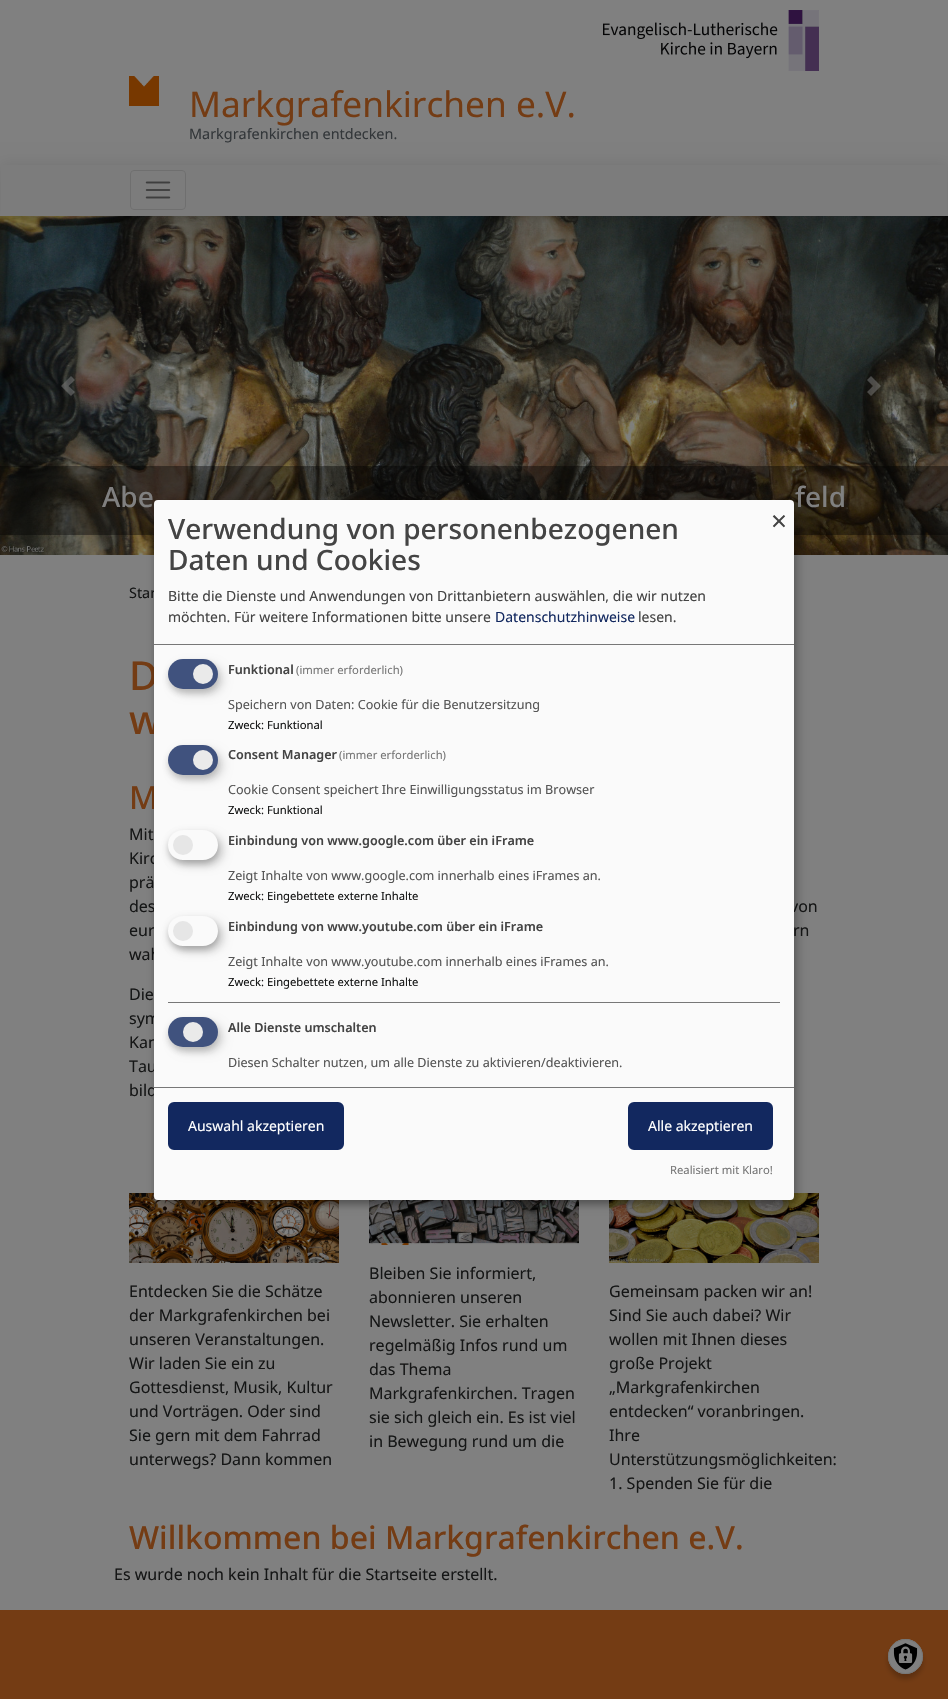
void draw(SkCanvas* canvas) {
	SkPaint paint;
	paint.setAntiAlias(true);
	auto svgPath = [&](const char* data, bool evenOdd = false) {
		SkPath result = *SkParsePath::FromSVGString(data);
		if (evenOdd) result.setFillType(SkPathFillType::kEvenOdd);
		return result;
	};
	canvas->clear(0xff808080);
	canvas->drawImageRect(SkImages::DeferredFromEncodedData(SkData::MakeFromFileName("img1.png")), SkRect::MakeXYWH(603, 10, 216, 61), SkSamplingOptions());
	canvas->drawImageRect(SkImages::DeferredFromEncodedData(SkData::MakeFromFileName("img2.png")), SkRect::MakeXYWH(129, 76, 30, 30), SkSamplingOptions());
	SkFont f1(fontMgr->matchFamilyStyle("Noto Sans", SkFontStyle::Normal()), 35.25);
	f1.setSubpixel(true);
	paint.setColor(0xff743c14);
	canvas->drawString("Markgrafenkirchen e.V.", 189, 117, f1, paint);
	SkFont f2(fontMgr->matchFamilyStyle("Noto Sans", SkFontStyle::Normal()), 14.4);
	f2.setSubpixel(true);
	paint.setColor(0xff33373a);
	canvas->drawString("Markgrafenkirchen entdecken.", 189, 139, f2, paint);
	canvas->drawImageRect(SkImages::DeferredFromEncodedData(SkData::MakeFromFileName("img4.png")), SkRect::MakeXYWH(0, 216, 948, 339), SkSamplingOptions());
	paint.setColor(0x17000000);
	paint.setMaskFilter(SkMaskFilter::MakeBlur(kNormal_SkBlurStyle, 7.5));
	canvas->drawRect(SkRect::MakeXYWH(0, 164, 948, 54), paint);
	paint.setMaskFilter(nullptr);
	paint.setColor(0xff7c7c7c);
	canvas->drawRect(SkRect::MakeXYWH(1, 165, 946, 51), paint);
	paint.setStroke(true);
	paint.setStrokeWidth(1);
	paint.setColor(0xff6f6f6f);
	canvas->drawRoundRect(SkRect::MakeXYWH(130.5, 170.5, 55, 39), 3.5, 3.5, paint);
	canvas->drawImageRect(SkImages::DeferredFromEncodedData(SkData::MakeFromFileName("img3.png")), SkRect::MakeXYWH(145, 181, 26, 18), SkSamplingOptions());
	paint.setStroke(false);
	paint.setColor(0x80808080);
	canvas->drawPath(svgPath("M71 376L61 386L71 396L75 392L68.5 386L75 380Z"), paint);
	canvas->drawPath(svgPath("M871 376L867 380L873 386L867 392L871 396L881 386Z"), paint);
	paint.setColor(0x66000000);
	canvas->drawRect(SkRect::MakeXYWH(0, 466, 948, 69), paint);
	SkFont f3(fontMgr->matchFamilyStyle("Noto Sans", SkFontStyle(500, SkFontStyle::kNormal_Width, SkFontStyle::kUpright_Slant)), 28);
	f3.setSubpixel(true);
	paint.setColor(0xff808080);
	canvas->drawString("Abe", 102, 507, f3, paint);
	canvas->drawString("feld", 795, 507, f3, paint);
	paint.setColor(0xff151616);
	canvas->drawString("Star", 129, 598, f2, paint);
	SkFont f4(fontMgr->matchFamilyStyle("Noto Sans", SkFontStyle(500, SkFontStyle::kNormal_Width, SkFontStyle::kUpright_Slant)), 40);
	f4.setSubpixel(true);
	paint.setColor(0xff743c14);
	canvas->drawString("D", 129, 690, f4, paint);
	canvas->drawString("w", 129, 734, f4, paint);
	SkFont f5(fontMgr->matchFamilyStyle("Noto Sans", SkFontStyle(500, SkFontStyle::kNormal_Width, SkFontStyle::kUpright_Slant)), 32);
	f5.setSubpixel(true);
	canvas->drawString("M", 129, 809, f5, paint);
	SkFont f6(fontMgr->matchFamilyStyle("Noto Sans", SkFontStyle::Normal()), 16);
	f6.setSubpixel(true);
	paint.setColor(0xff151616);
	canvas->drawString("Mit", 129, 840, f6, paint);
	canvas->drawString("Kirc", 129, 864, f6, paint);
	canvas->drawString("prä", 129, 888, f6, paint);
	canvas->drawString("des", 129, 912, f6, paint);
	canvas->drawString("von", 790, 912, f6, paint);
	canvas->drawString("eur", 129, 936, f6, paint);
	canvas->drawString("rn", 793, 936, f6, paint);
	canvas->drawString("wah", 129, 960, f6, paint);
	canvas->drawString("Die", 129, 1000, f6, paint);
	canvas->drawString("sym", 129, 1024, f6, paint);
	canvas->drawString("Kan", 129, 1048, f6, paint);
	canvas->drawString("Tau", 129, 1072, f6, paint);
	canvas->drawString("bild", 129, 1096, f6, paint);
	canvas->drawImageRect(SkImages::DeferredFromEncodedData(SkData::MakeFromFileName("img5.png")), SkRect::MakeXYWH(129, 1193, 210, 70), SkSamplingOptions());
	canvas->drawString("Entdecken Sie die Schätze", 129, 1297, f6, paint);
	canvas->drawString("der Markgrafenkirchen bei", 129, 1321, f6, paint);
	canvas->drawString("unseren Veranstaltungen.", 129, 1345, f6, paint);
	canvas->drawString("Wir laden Sie ein zu", 129, 1369, f6, paint);
	canvas->drawString("Gottesdienst, Musik, Kultur", 129, 1393, f6, paint);
	canvas->drawString("und Vorträgen. Oder sind", 129, 1417, f6, paint);
	canvas->drawString("Sie gern mit dem Fahrrad", 129, 1441, f6, paint);
	canvas->drawString("unterwegs? Dann kommen", 129, 1465, f6, paint);
	canvas->drawImageRect(SkImages::DeferredFromEncodedData(SkData::MakeFromFileName("img6.png")), SkRect::MakeXYWH(369, 1200, 210, 45), SkSamplingOptions());
	canvas->drawString("Bleiben Sie informiert,", 369, 1279, f6, paint);
	canvas->drawString("abonnieren unseren", 369, 1303, f6, paint);
	canvas->drawString("Newsletter. Sie erhalten", 369, 1327, f6, paint);
	canvas->drawString("regelmäßig Infos rund um", 369, 1351, f6, paint);
	canvas->drawString("das Thema", 369, 1375, f6, paint);
	canvas->drawString("Markgrafenkirchen. Tragen", 369, 1399, f6, paint);
	canvas->drawString("sie sich gleich ein. Es ist viel", 369, 1423, f6, paint);
	canvas->drawString("in Bewegung rund um die", 369, 1447, f6, paint);
	canvas->drawImageRect(SkImages::DeferredFromEncodedData(SkData::MakeFromFileName("img7.png")), SkRect::MakeXYWH(609, 1193, 210, 70), SkSamplingOptions());
	canvas->drawString("Gemeinsam packen wir an!", 609, 1297, f6, paint);
	canvas->drawString("Sind Sie auch dabei? Wir", 609, 1321, f6, paint);
	canvas->drawString("wollen mit Ihnen dieses", 609, 1345, f6, paint);
	canvas->drawString("große Projekt", 609, 1369, f6, paint);
	canvas->drawString("„Markgrafenkirchen", 609, 1393, f6, paint);
	canvas->drawString("entdecken“ voranbringen.", 609, 1417, f6, paint);
	canvas->drawString("Ihre", 609, 1441, f6, paint);
	canvas->drawString("Unterstützungsmöglichkeiten:", 609, 1465, f6, paint);
	canvas->drawString("1. Spenden Sie für die", 609, 1489, f6, paint);
	paint.setColor(0xff743c14);
	canvas->drawString("Willkommen bei Markgrafenkirchen e.V.", 129, 1549, f5, paint);
	paint.setColor(0xff151616);
	canvas->drawString("Es wurde noch kein Inhalt für die Startseite erstellt.", 114, 1580, f6, paint);
	paint.setColor(0xff743c14);
	canvas->drawRect(SkRect::MakeXYWH(0, 1610, 948, 89), paint);
	paint.setColor(0x30000000);
	paint.setMaskFilter(SkMaskFilter::MakeBlur(kNormal_SkBlurStyle, 5));
	canvas->drawRoundRect(SkRect::MakeXYWH(159, 505, 640, 700), 4, 4, paint);
	paint.setMaskFilter(nullptr);
	paint.setColor(0x33000000);
	paint.setMaskFilter(SkMaskFilter::MakeBlur(kNormal_SkBlurStyle, 3));
	canvas->drawRoundRect(SkRect::MakeXYWH(154, 504, 640, 700), 4, 4, paint);
	paint.setMaskFilter(nullptr);
	paint.setColor(0xfffafafa);
	canvas->drawRoundRect(SkRect::MakeXYWH(154, 500, 640, 700), 4, 4, paint);
	paint.setColor(0xff777777);
	canvas->drawRect(SkRect::MakeXYWH(154, 644, 640, 1), paint);
	paint.setColor(0xff444444);
	canvas->drawString("Verwendung von personenbezogenen", 168, 539, f3, paint);
	canvas->drawString("Daten und Cookies", 168, 570, f3, paint);
	SkFont f7(fontMgr->matchFamilyStyle("Noto Sans", SkFontStyle::Normal()), 14);
	f7.setSubpixel(true);
	canvas->drawString("Bitte die Dienste und Anwendungen von Drittanbietern auswählen, die wir nutzen", 168, 601, f7, paint);
	canvas->drawString("möchten. Für weitere Informationen bitte unsere", 168, 622, f7, paint);
	paint.setColor(0xff12285f);
	canvas->drawString("Datenschutzhinweise", 495, 622, f7, paint);
	paint.setColor(0xff444444);
	canvas->drawString("lesen.", 638, 622, f7, paint);
	SkFont f8(fontMgr->matchFamilyStyle("Noto Sans", SkFontStyle::Normal()), 28);
	f8.setSubpixel(true);
	canvas->drawString("×", 771, 531, f8, paint);
	paint.setColor(0x26000000);
	paint.setMaskFilter(SkMaskFilter::MakeBlur(kNormal_SkBlurStyle, 5));
	canvas->drawRoundRect(SkRect::MakeXYWH(173, 664, 50, 30), 15, 15, paint);
	paint.setMaskFilter(nullptr);
	paint.setColor(0x33323232);
	paint.setMaskFilter(SkMaskFilter::MakeBlur(kNormal_SkBlurStyle, 3));
	canvas->drawRoundRect(SkRect::MakeXYWH(168, 663, 50, 30), 15, 15, paint);
	paint.setMaskFilter(nullptr);
	paint.setColor(0xff40527e);
	canvas->drawRoundRect(SkRect::MakeXYWH(168, 659, 50, 30), 15, 15, paint);
	paint.setColor(0xffeaeaea);
	canvas->drawCircle(203, 674, 10, paint);
	SkFont f9(fontMgr->matchFamilyStyle("Noto Sans", SkFontStyle(600, SkFontStyle::kNormal_Width, SkFontStyle::kUpright_Slant)), 12.6);
	f9.setSubpixel(true);
	paint.setColor(0xff444444);
	canvas->drawString("Funktional", 228, 674, f9, paint);
	SkFont f10(fontMgr->matchFamilyStyle("Noto Sans", SkFontStyle::Normal()), 11.25);
	f10.setSubpixel(true);
	paint.setColor(0xff777777);
	canvas->drawString("(immer erforderlich)", 296, 674, f10, paint);
	SkFont f11(fontMgr->matchFamilyStyle("Noto Sans", SkFontStyle::Normal()), 12.6);
	f11.setSubpixel(true);
	paint.setColor(0xff555555);
	canvas->drawString("Speichern von Daten: Cookie für die Benutzersitzung", 228, 709, f11, paint);
	paint.setColor(0xff151616);
	canvas->drawString("Zweck: Funktional", 228, 729, f10, paint);
	paint.setColor(0x26000000);
	paint.setMaskFilter(SkMaskFilter::MakeBlur(kNormal_SkBlurStyle, 5));
	canvas->drawRoundRect(SkRect::MakeXYWH(173, 750, 50, 30), 15, 15, paint);
	paint.setMaskFilter(nullptr);
	paint.setColor(0x33323232);
	paint.setMaskFilter(SkMaskFilter::MakeBlur(kNormal_SkBlurStyle, 3));
	canvas->drawRoundRect(SkRect::MakeXYWH(168, 749, 50, 30), 15, 15, paint);
	paint.setMaskFilter(nullptr);
	paint.setColor(0xff40527e);
	canvas->drawRoundRect(SkRect::MakeXYWH(168, 745, 50, 30), 15, 15, paint);
	paint.setColor(0xffeaeaea);
	canvas->drawCircle(203, 760, 10, paint);
	paint.setColor(0xff444444);
	canvas->drawString("Consent Manager", 228, 759, f9, paint);
	paint.setColor(0xff777777);
	canvas->drawString("(immer erforderlich)", 339, 759, f10, paint);
	paint.setColor(0xff555555);
	canvas->drawString("Cookie Consent speichert Ihre Einwilligungsstatus im Browser", 228, 794, f11, paint);
	paint.setColor(0xff151616);
	canvas->drawString("Zweck: Funktional", 228, 814, f10, paint);
	canvas->save();
	canvas->clipPath(svgPath("M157 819H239V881H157ZM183 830H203C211.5 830 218 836.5 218 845C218 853.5 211.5 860 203 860H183C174.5 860 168 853.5 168 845C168 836.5 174.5 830 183 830Z", true), true);
	paint.setColor(0x30000000);
	paint.setMaskFilter(SkMaskFilter::MakeBlur(kNormal_SkBlurStyle, 5));
	canvas->drawRoundRect(SkRect::MakeXYWH(173, 835, 50, 30), 15, 15, paint);
	paint.setMaskFilter(nullptr);
	canvas->restore();
	canvas->save();
	canvas->clipPath(svgPath("M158 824H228V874H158ZM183 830H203C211.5 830 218 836.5 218 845C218 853.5 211.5 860 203 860H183C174.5 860 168 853.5 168 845C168 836.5 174.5 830 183 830Z", true), true);
	paint.setColor(0x33000000);
	paint.setMaskFilter(SkMaskFilter::MakeBlur(kNormal_SkBlurStyle, 3));
	canvas->drawRoundRect(SkRect::MakeXYWH(168, 834, 50, 30), 15, 15, paint);
	paint.setMaskFilter(nullptr);
	canvas->restore();
	paint.setColor(0xffe6e6e6);
	canvas->drawCircle(183, 845, 10, paint);
	paint.setColor(0xff444444);
	canvas->drawString("Einbindung von www.google.com über ein iFrame", 228, 845, f9, paint);
	paint.setColor(0xff555555);
	canvas->drawString("Zeigt Inhalte von www.google.com innerhalb eines iFrames an.", 228, 880, f11, paint);
	paint.setColor(0xff151616);
	canvas->drawString("Zweck: Eingebettete externe Inhalte", 228, 900, f10, paint);
	canvas->save();
	canvas->clipPath(svgPath("M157 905H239V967H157ZM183 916H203C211.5 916 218 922.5 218 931C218 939.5 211.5 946 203 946H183C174.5 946 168 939.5 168 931C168 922.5 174.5 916 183 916Z", true), true);
	paint.setColor(0x30000000);
	paint.setMaskFilter(SkMaskFilter::MakeBlur(kNormal_SkBlurStyle, 5));
	canvas->drawRoundRect(SkRect::MakeXYWH(173, 921, 50, 30), 15, 15, paint);
	paint.setMaskFilter(nullptr);
	canvas->restore();
	canvas->save();
	canvas->clipPath(svgPath("M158 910H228V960H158ZM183 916H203C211.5 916 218 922.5 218 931C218 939.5 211.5 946 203 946H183C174.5 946 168 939.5 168 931C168 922.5 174.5 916 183 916Z", true), true);
	paint.setColor(0x33000000);
	paint.setMaskFilter(SkMaskFilter::MakeBlur(kNormal_SkBlurStyle, 3));
	canvas->drawRoundRect(SkRect::MakeXYWH(168, 920, 50, 30), 15, 15, paint);
	paint.setMaskFilter(nullptr);
	canvas->restore();
	paint.setColor(0xffe6e6e6);
	canvas->drawCircle(183, 931, 10, paint);
	paint.setColor(0xff444444);
	canvas->drawString("Einbindung von www.youtube.com über ein iFrame", 228, 931, f9, paint);
	paint.setColor(0xff555555);
	canvas->drawString("Zeigt Inhalte von www.youtube.com innerhalb eines iFrames an.", 228, 966, f11, paint);
	paint.setColor(0xff151616);
	canvas->drawString("Zweck: Eingebettete externe Inhalte", 228, 986, f10, paint);
	paint.setColor(0xff777777);
	canvas->drawRect(SkRect::MakeXYWH(168, 1002, 612, 1), paint);
	paint.setColor(0x26000000);
	paint.setMaskFilter(SkMaskFilter::MakeBlur(kNormal_SkBlurStyle, 5));
	canvas->drawRoundRect(SkRect::MakeXYWH(173, 1022, 50, 30), 15, 15, paint);
	paint.setMaskFilter(nullptr);
	paint.setColor(0x33323232);
	paint.setMaskFilter(SkMaskFilter::MakeBlur(kNormal_SkBlurStyle, 3));
	canvas->drawRoundRect(SkRect::MakeXYWH(168, 1021, 50, 30), 15, 15, paint);
	paint.setMaskFilter(nullptr);
	paint.setColor(0xff40527e);
	canvas->drawRoundRect(SkRect::MakeXYWH(168, 1017, 50, 30), 15, 15, paint);
	paint.setColor(0xffeaeaea);
	canvas->drawCircle(193, 1032, 10, paint);
	paint.setColor(0xff444444);
	canvas->drawString("Alle Dienste umschalten", 228, 1032, f9, paint);
	paint.setColor(0xff555555);
	canvas->drawString("Diesen Schalter nutzen, um alle Dienste zu aktivieren/deaktivieren.", 228, 1067, f11, paint);
	paint.setColor(0xff777777);
	canvas->drawRect(SkRect::MakeXYWH(154, 1087, 640, 1), paint);
	paint.setColor(0xff12285f);
	canvas->drawRoundRect(SkRect::MakeXYWH(169.5, 1103.5, 173, 45), 4.5, 4.5, paint);
	paint.setStroke(true);
	paint.setStrokeWidth(3);
	canvas->drawRoundRect(SkRect::MakeXYWH(169.5, 1103.5, 173, 45), 4.5, 4.5, paint);
	paint.setStroke(false);
	paint.setColor(0xffffffff);
	canvas->drawString("Auswahl akzeptieren", 188, 1131, f7, paint);
	paint.setColor(0xff12285f);
	canvas->drawRoundRect(SkRect::MakeXYWH(629.5, 1103.5, 142, 45), 4.5, 4.5, paint);
	paint.setStroke(true);
	canvas->drawRoundRect(SkRect::MakeXYWH(629.5, 1103.5, 142, 45), 4.5, 4.5, paint);
	paint.setStroke(false);
	paint.setColor(0xffffffff);
	canvas->drawString("Alle akzeptieren", 648, 1131, f7, paint);
	paint.setColor(0xff777777);
	canvas->drawString("Realisiert mit Klaro!", 670, 1174, f10, paint);
	paint.setColor(0x33000000);
	paint.setMaskFilter(SkMaskFilter::MakeBlur(kNormal_SkBlurStyle, 2.5));
	canvas->drawRoundRect(SkRect::MakeXYWH(888, 1644, 35, 35), 17.5, 17.5, paint);
	paint.setMaskFilter(nullptr);
	paint.setColor(0xff808080);
	canvas->drawCircle(905.5, 1656.5, 17.5, paint);
	canvas->drawImageRect(SkImages::DeferredFromEncodedData(SkData::MakeFromFileName("img8.png")), SkRect::MakeXYWH(893, 1643, 25, 27), SkSamplingOptions());
	paint.setStroke(true);
	paint.setStrokeWidth(1);
	paint.setColor(0xff757575);
	canvas->drawCircle(905.5, 1656.5, 17, paint);
}
